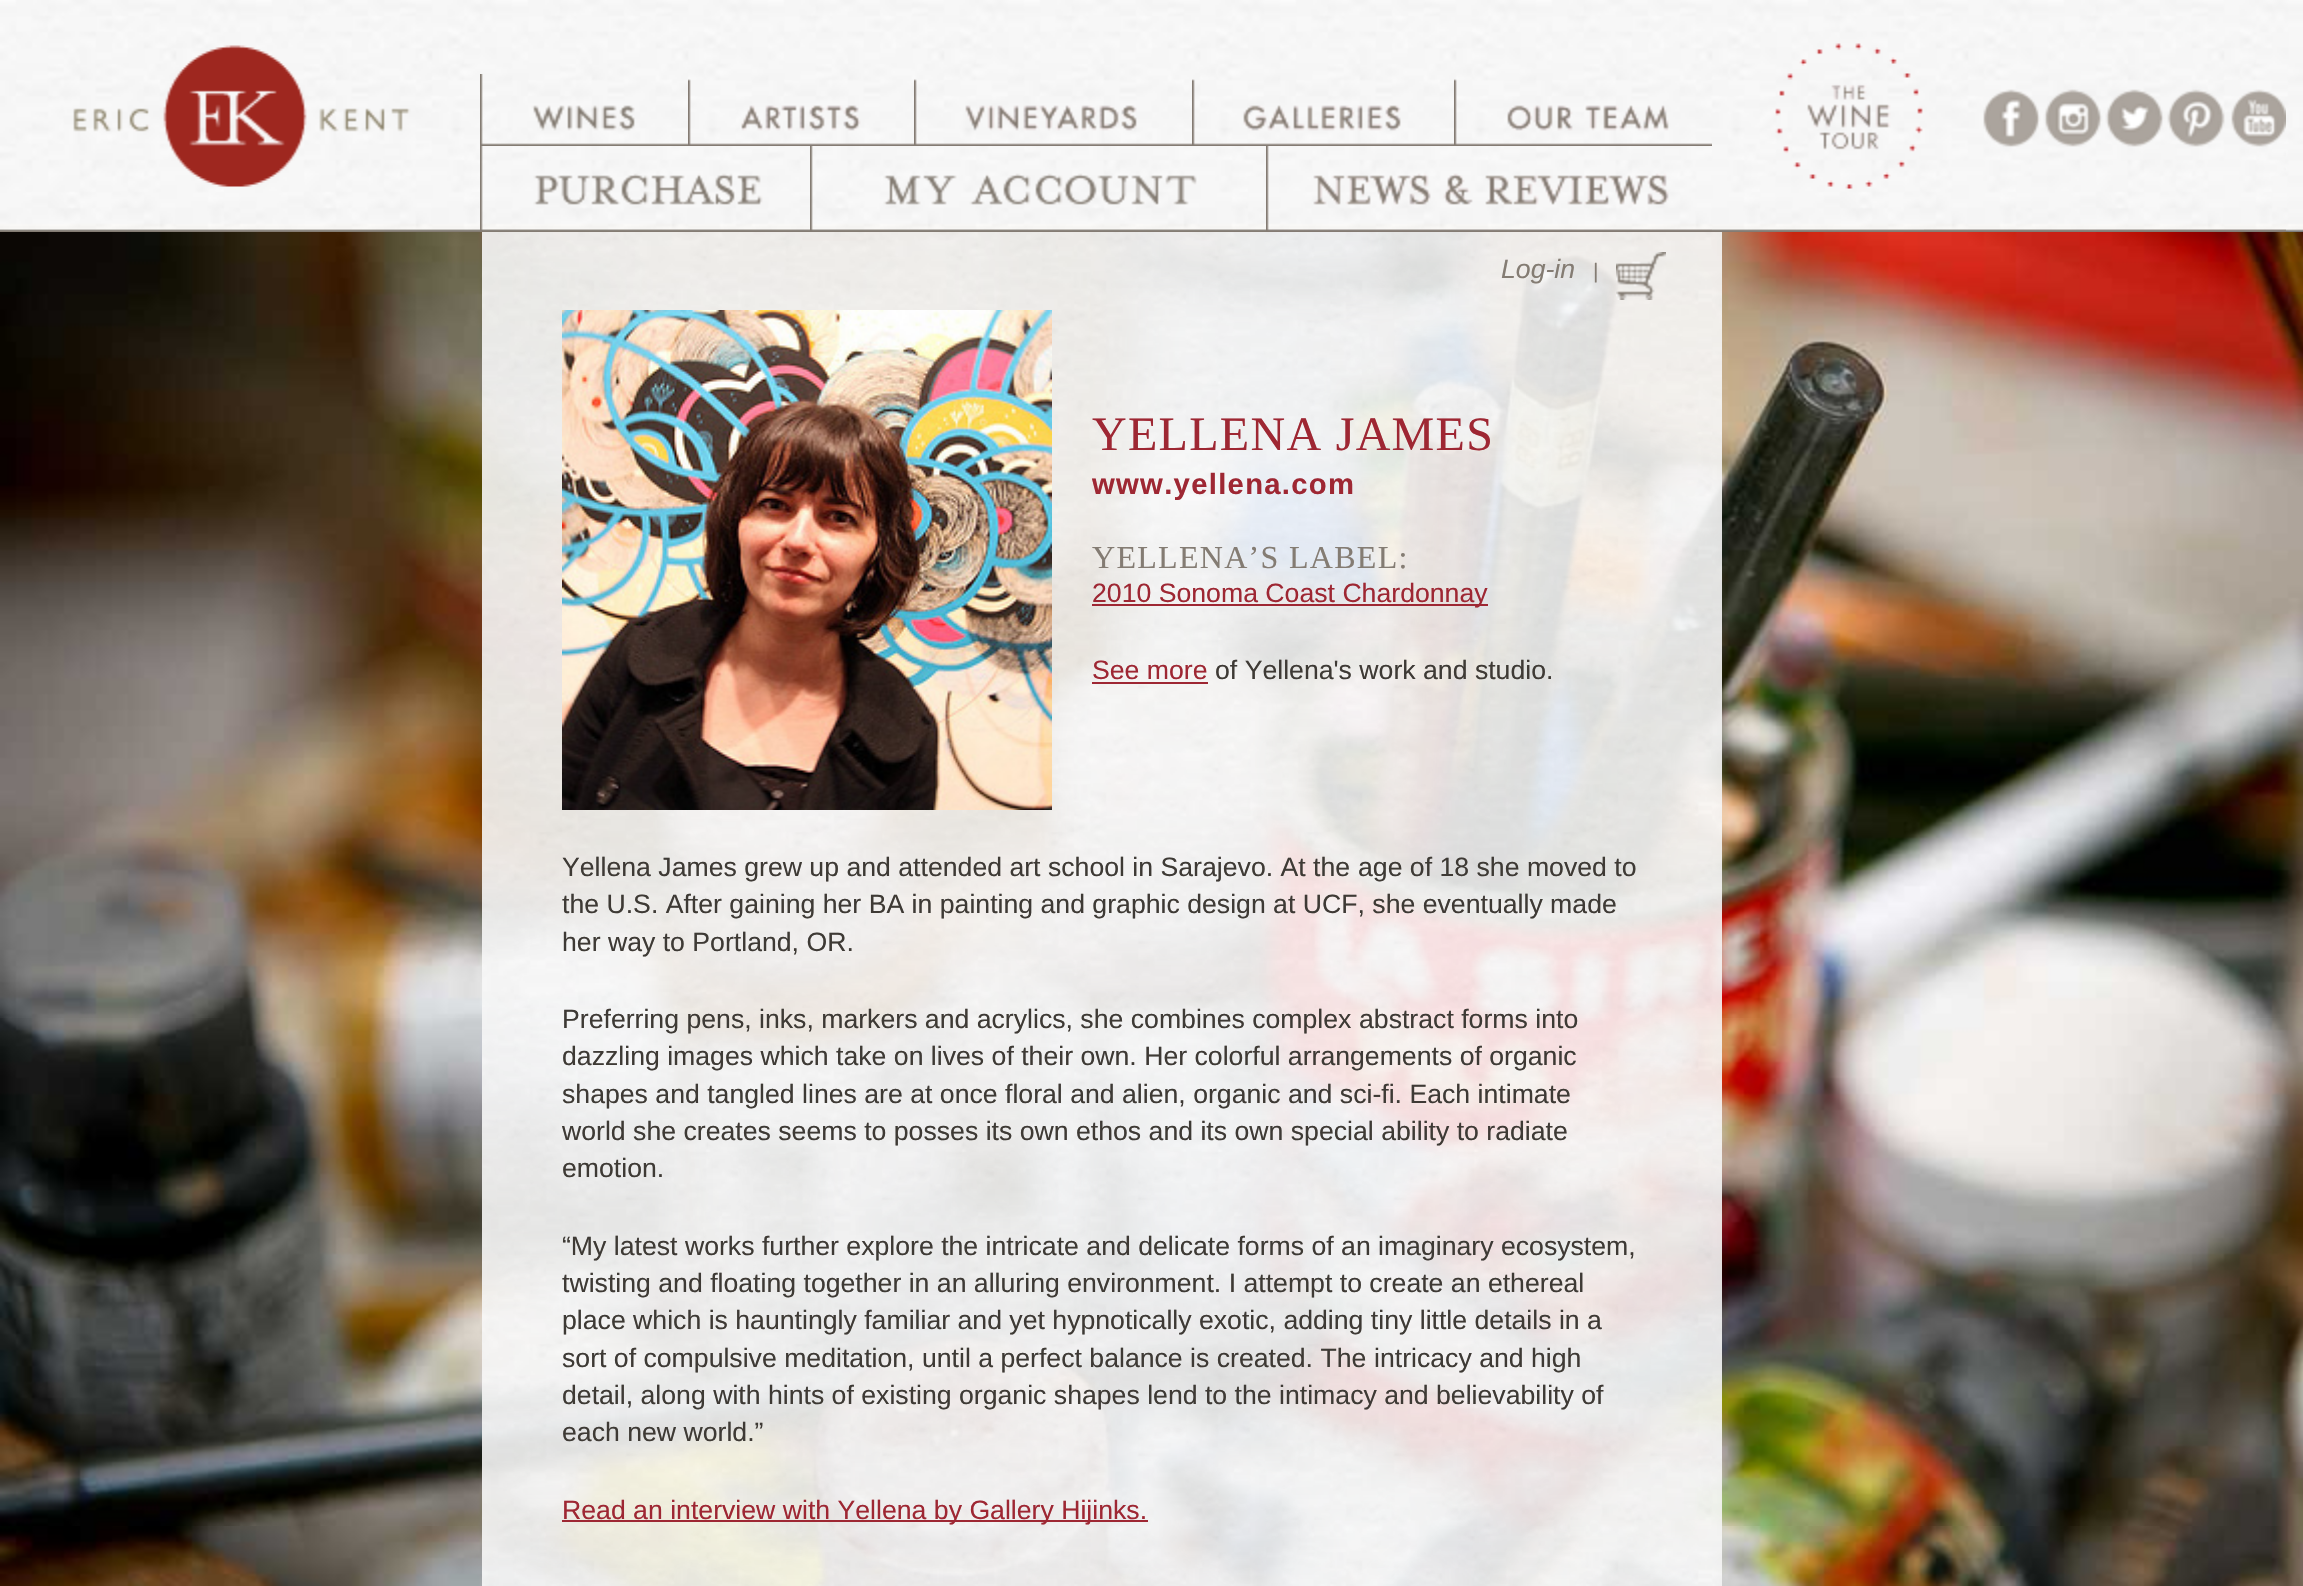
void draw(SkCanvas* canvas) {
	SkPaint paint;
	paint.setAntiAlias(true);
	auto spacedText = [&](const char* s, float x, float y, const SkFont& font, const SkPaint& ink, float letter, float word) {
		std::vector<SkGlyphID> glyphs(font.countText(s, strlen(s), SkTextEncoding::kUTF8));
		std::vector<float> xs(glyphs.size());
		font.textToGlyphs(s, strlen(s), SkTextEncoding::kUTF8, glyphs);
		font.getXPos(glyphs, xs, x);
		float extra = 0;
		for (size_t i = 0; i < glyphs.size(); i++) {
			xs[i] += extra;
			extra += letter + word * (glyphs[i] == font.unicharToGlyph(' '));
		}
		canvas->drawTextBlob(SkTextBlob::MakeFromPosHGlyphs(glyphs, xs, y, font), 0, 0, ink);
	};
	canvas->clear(0xffffffff);
	canvas->drawImageRect(SkImages::DeferredFromEncodedData(SkData::MakeFromFileName("img1.png")), SkRect::MakeXYWH(0, 232, 2303, 1354), SkSamplingOptions());
	canvas->drawImageRect(SkImages::DeferredFromEncodedData(SkData::MakeFromFileName("img2.png")), SkRect::MakeXYWH(0, 0, 2303, 232), SkSamplingOptions());
	canvas->drawImageRect(SkImages::DeferredFromEncodedData(SkData::MakeFromFileName("img3.png")), SkRect::MakeXYWH(0, 45, 480, 187), SkSamplingOptions());
	canvas->drawImageRect(SkImages::DeferredFromEncodedData(SkData::MakeFromFileName("img4.png")), SkRect::MakeXYWH(480, 74, 208, 72), SkSamplingOptions());
	canvas->drawImageRect(SkImages::DeferredFromEncodedData(SkData::MakeFromFileName("img5.png")), SkRect::MakeXYWH(688, 79, 226, 67), SkSamplingOptions());
	canvas->drawImageRect(SkImages::DeferredFromEncodedData(SkData::MakeFromFileName("img6.png")), SkRect::MakeXYWH(914, 79, 278, 67), SkSamplingOptions());
	canvas->drawImageRect(SkImages::DeferredFromEncodedData(SkData::MakeFromFileName("img7.png")), SkRect::MakeXYWH(1192, 79, 262, 67), SkSamplingOptions());
	canvas->drawImageRect(SkImages::DeferredFromEncodedData(SkData::MakeFromFileName("img8.png")), SkRect::MakeXYWH(1454, 79, 258, 67), SkSamplingOptions());
	canvas->drawImageRect(SkImages::DeferredFromEncodedData(SkData::MakeFromFileName("img9.png")), SkRect::MakeXYWH(1712, 43, 212, 189), SkSamplingOptions());
	canvas->drawImageRect(SkImages::DeferredFromEncodedData(SkData::MakeFromFileName("img10.png")), SkRect::MakeXYWH(1924, 89, 118, 143), SkSamplingOptions());
	canvas->drawImageRect(SkImages::DeferredFromEncodedData(SkData::MakeFromFileName("img11.png")), SkRect::MakeXYWH(2042, 89, 62, 143), SkSamplingOptions());
	canvas->drawImageRect(SkImages::DeferredFromEncodedData(SkData::MakeFromFileName("img12.png")), SkRect::MakeXYWH(2104, 89, 62, 143), SkSamplingOptions());
	canvas->drawImageRect(SkImages::DeferredFromEncodedData(SkData::MakeFromFileName("img13.png")), SkRect::MakeXYWH(2166, 89, 62, 143), SkSamplingOptions());
	canvas->drawImageRect(SkImages::DeferredFromEncodedData(SkData::MakeFromFileName("img14.png")), SkRect::MakeXYWH(2228, 89, 58, 143), SkSamplingOptions());
	canvas->drawImageRect(SkImages::DeferredFromEncodedData(SkData::MakeFromFileName("img15.png")), SkRect::MakeXYWH(480, 146, 330, 86), SkSamplingOptions());
	canvas->drawImageRect(SkImages::DeferredFromEncodedData(SkData::MakeFromFileName("img16.png")), SkRect::MakeXYWH(810, 146, 456, 86), SkSamplingOptions());
	canvas->drawImageRect(SkImages::DeferredFromEncodedData(SkData::MakeFromFileName("img17.png")), SkRect::MakeXYWH(1266, 146, 446, 86), SkSamplingOptions());
	canvas->drawImageRect(SkImages::DeferredFromEncodedData(SkData::MakeFromFileName("img18.png")), SkRect::MakeXYWH(482, 232, 1240, 1354), SkSamplingOptions());
	SkFont f1(fontMgr->matchFamilyStyle("Liberation Sans", SkFontStyle::Italic()), 26.65);
	f1.setSubpixel(true);
	paint.setColor(0xff847c73);
	canvas->drawString("Log-in", 1501, 278, f1, paint);
	SkFont f2(fontMgr->matchFamilyStyle("Liberation Sans", SkFontStyle::Normal()), 21);
	f2.setSubpixel(true);
	canvas->drawString("|", 1593, 278, f2, paint);
	canvas->drawImageRect(SkImages::DeferredFromEncodedData(SkData::MakeFromFileName("img19.png")), SkRect::MakeXYWH(1616, 252, 50, 48), SkSamplingOptions());
	canvas->drawImageRect(SkImages::DeferredFromEncodedData(SkData::MakeFromFileName("img20.png")), SkRect::MakeXYWH(562, 310, 490, 500), SkSamplingOptions());
	SkFont f3(fontMgr->matchFamilyStyle("Liberation Serif", SkFontStyle::Normal()), 48);
	f3.setSubpixel(true);
	paint.setColor(0xff9e2733);
	spacedText("YELLENA JAMES", 1092, 450, f3, paint, 1.3, 0);
	SkFont f4(fontMgr->matchFamilyStyle("Liberation Sans", SkFontStyle::Bold()), 29.25);
	f4.setSubpixel(true);
	spacedText("www.yellena.com", 1092, 494, f4, paint, 1.3, 0);
	SkFont f5(fontMgr->matchFamilyStyle("Liberation Serif", SkFontStyle::Normal()), 32);
	f5.setSubpixel(true);
	paint.setColor(0xff847c73);
	spacedText("YELLENA’S LABEL:", 1092, 568, f5, paint, 1.3, 0);
	paint.setColor(0xff9e2733);
	canvas->drawRect(SkRect::MakeXYWH(1092, 604, 396, 2), paint);
	SkFont f6(fontMgr->matchFamilyStyle("Liberation Sans", SkFontStyle::Normal()), 26.65);
	f6.setSubpixel(true);
	canvas->drawString("2010 Sonoma Coast Chardonnay", 1092, 602, f6, paint);
	canvas->drawString("See more", 1092, 679, f6, paint);
	canvas->drawRect(SkRect::MakeXYWH(1092, 682, 116, 2), paint);
	paint.setColor(0xff3e3a35);
	canvas->drawString("of Yellena's work and studio.", 1215, 679, f6, paint);
	canvas->drawString("Yellena James grew up and attended art school in Sarajevo. At the", 562, 876, f6, paint);
	canvas->drawString("age of 18 she moved to", 1358, 876, f6, paint);
	canvas->drawString("the U.S. After gaining her BA in painting and graphic design at UCF, she eventually made", 562, 913, f6, paint);
	canvas->drawString("her way to Portland, OR.", 562, 951, f6, paint);
	canvas->drawString("Preferring pens, inks, markers and acrylics, she combines complex", 562, 1028, f6, paint);
	canvas->drawString("abstract forms into", 1359, 1028, f6, paint);
	canvas->drawString("dazzling images which take on lives of their own. Her colorful arrangements of organic", 562, 1065, f6, paint);
	canvas->drawString("shapes and tangled lines are at once floral and alien, organic and sci-fi. Each intimate", 562, 1103, f6, paint);
	canvas->drawString("world she creates seems to posses its own ethos and its own special ability to radiate", 562, 1140, f6, paint);
	canvas->drawString("emotion.", 562, 1177, f6, paint);
	canvas->drawString("“My latest works further explore the intricate and delicate forms of an", 562, 1255, f6, paint);
	canvas->drawString("imaginary ecosystem,", 1378, 1255, f6, paint);
	canvas->drawString("twisting and floating together in an alluring environment. I attempt to create an ethereal", 562, 1292, f6, paint);
	canvas->drawString("place which is hauntingly familiar and yet hypnotically exotic, adding tiny little details in a", 562, 1329, f6, paint);
	canvas->drawString("sort of compulsive meditation, until a perfect balance is created. The", 562, 1367, f6, paint);
	canvas->drawString("intricacy and high", 1374, 1367, f6, paint);
	canvas->drawString("detail, along with hints of existing organic shapes lend to the intimacy and believability of", 562, 1404, f6, paint);
	canvas->drawString("each new world.”", 562, 1441, f6, paint);
	paint.setColor(0xff9e2733);
	canvas->drawRect(SkRect::MakeXYWH(562, 1520, 586, 2), paint);
	canvas->drawString("Read an interview with Yellena by Gallery Hijinks.", 562, 1519, f6, paint);
}
